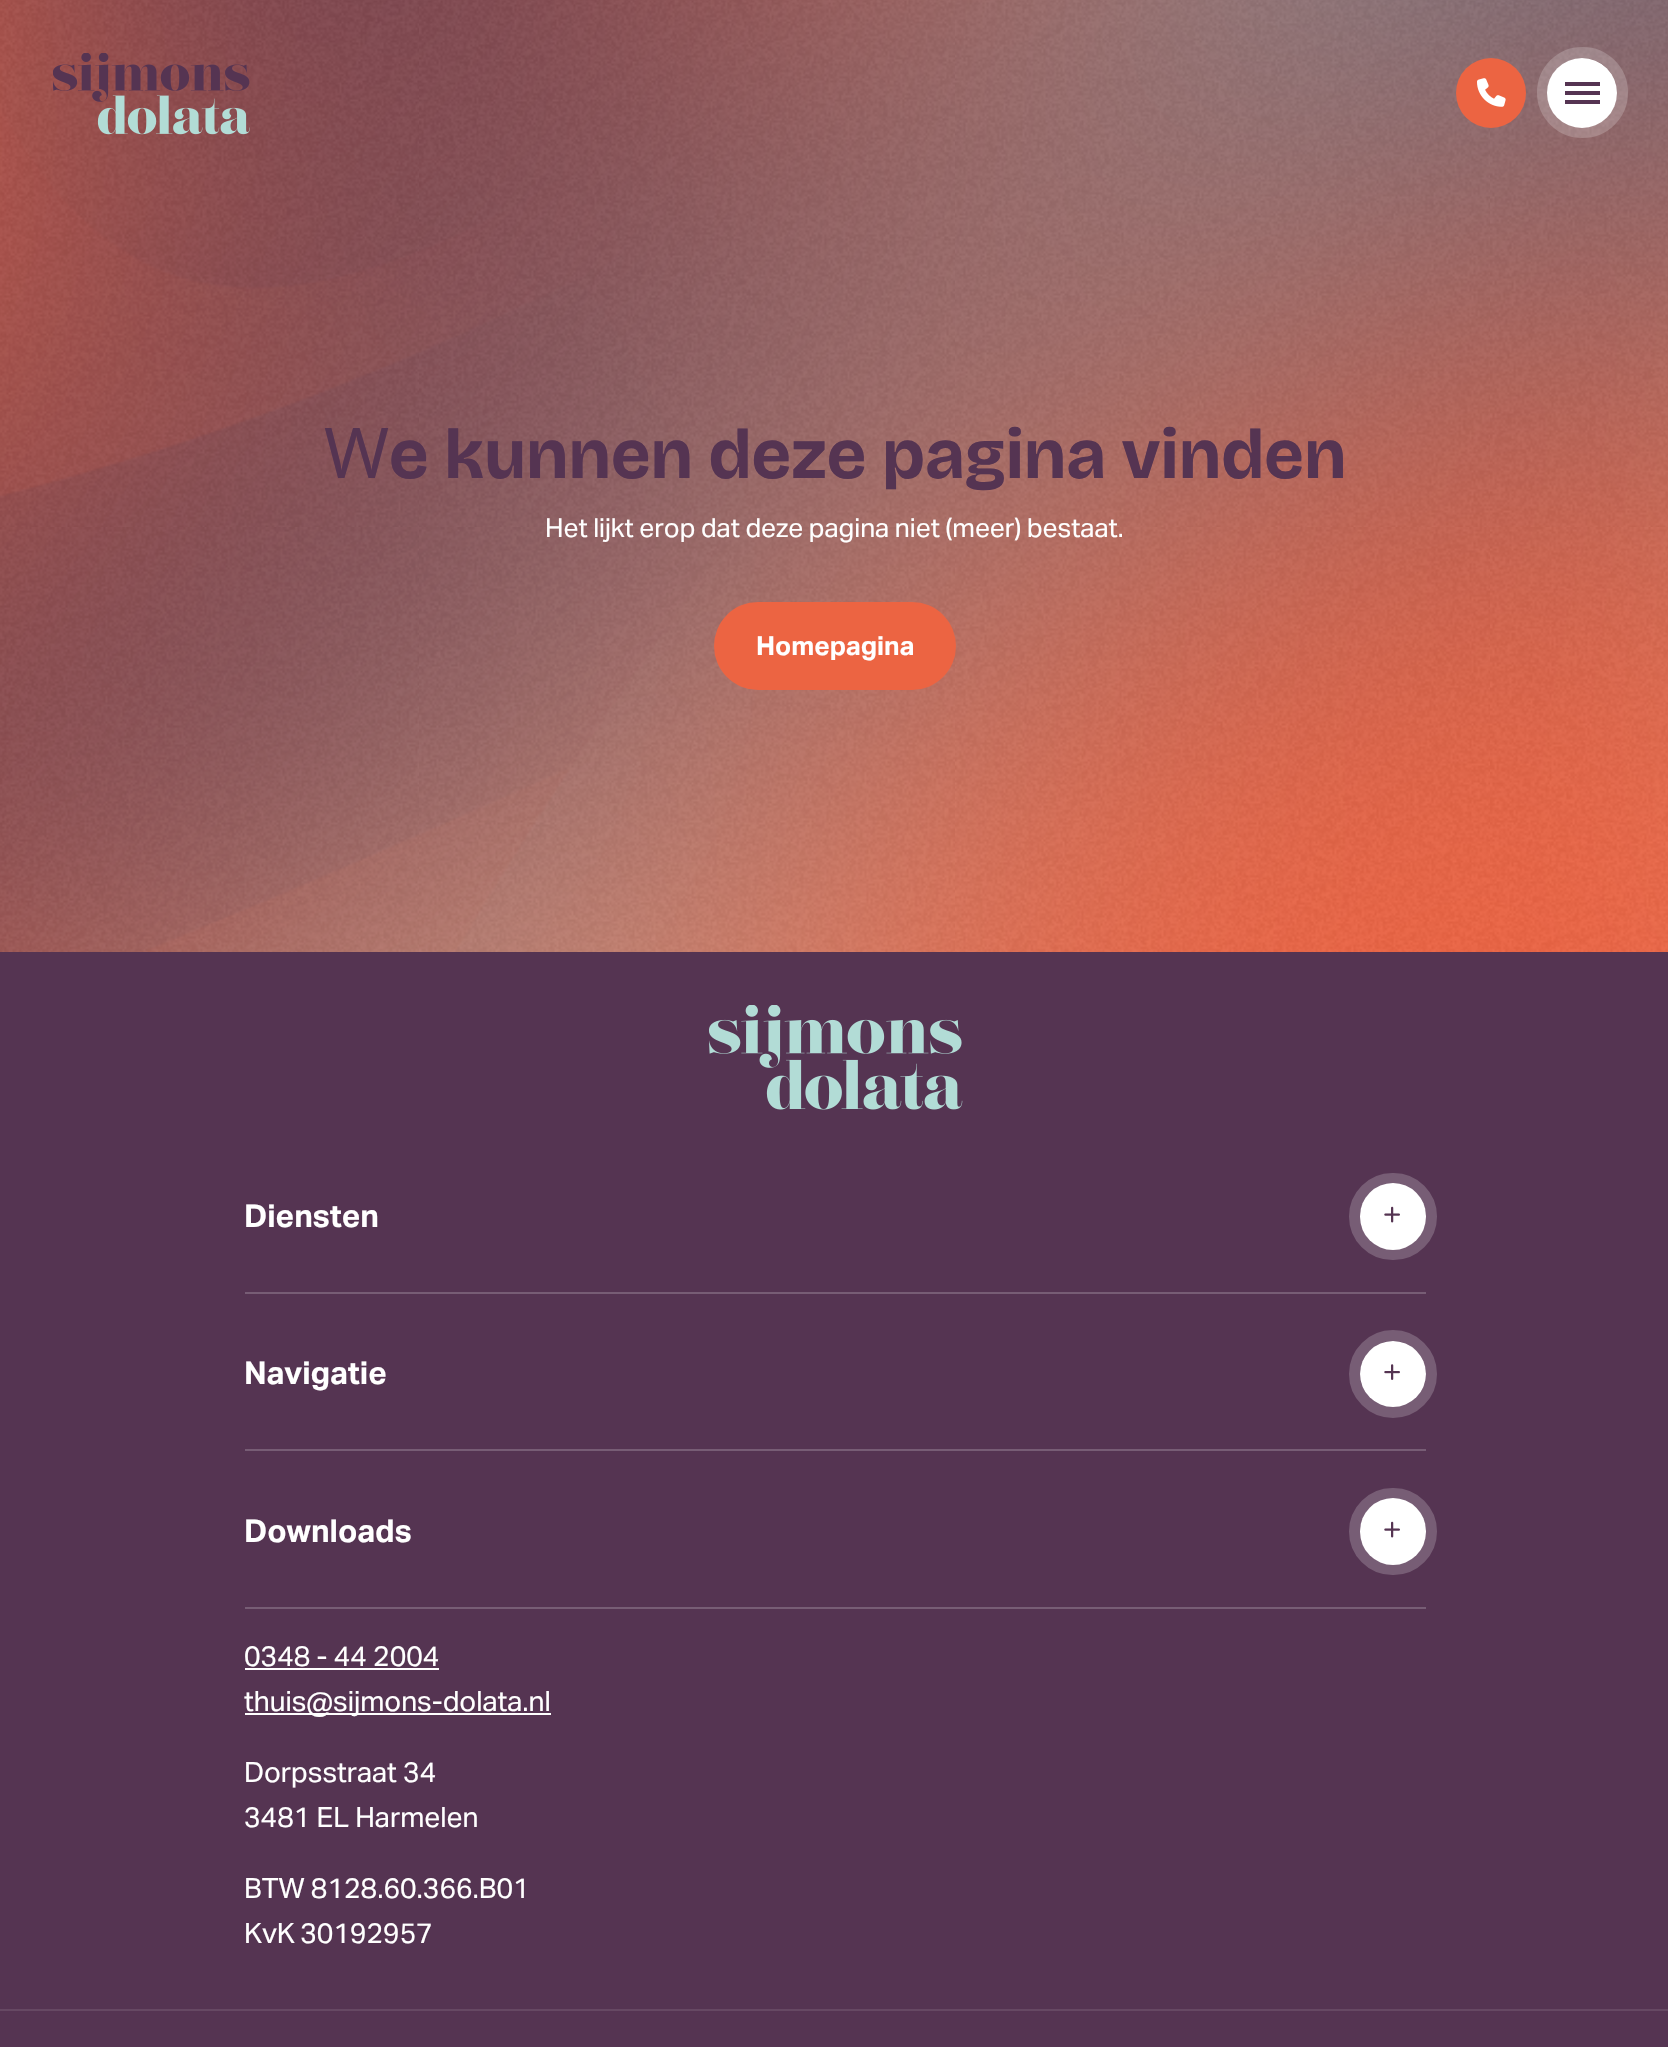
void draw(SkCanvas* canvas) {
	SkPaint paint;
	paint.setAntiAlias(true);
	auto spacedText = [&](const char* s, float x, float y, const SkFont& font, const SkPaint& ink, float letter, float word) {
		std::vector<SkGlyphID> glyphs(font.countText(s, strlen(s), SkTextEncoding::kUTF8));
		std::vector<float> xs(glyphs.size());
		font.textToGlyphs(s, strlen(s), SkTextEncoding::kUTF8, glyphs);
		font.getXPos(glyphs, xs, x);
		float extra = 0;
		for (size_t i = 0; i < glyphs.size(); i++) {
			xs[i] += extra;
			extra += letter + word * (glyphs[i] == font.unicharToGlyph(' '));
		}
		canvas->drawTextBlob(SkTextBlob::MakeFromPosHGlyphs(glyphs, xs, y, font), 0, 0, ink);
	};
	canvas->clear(0xffffffff);
	canvas->drawImageRect(SkImages::DeferredFromEncodedData(SkData::MakeFromFileName("img1.png")), SkRect::MakeXYWH(0, 0, 1668, 952), SkSamplingOptions());
	canvas->drawImageRect(SkImages::DeferredFromEncodedData(SkData::MakeFromFileName("img2.png")), SkRect::MakeXYWH(53, 53, 197, 82), SkSamplingOptions());
	paint.setColor(0xffec6442);
	canvas->drawCircle(1491, 93, 35, paint);
	canvas->drawImageRect(SkImages::DeferredFromEncodedData(SkData::MakeFromFileName("img3.png")), SkRect::MakeXYWH(1477, 78, 29, 29), SkSamplingOptions());
	paint.setStroke(true);
	paint.setStrokeWidth(11);
	paint.setColor(0x33ffffff);
	canvas->drawCircle(1582.5, 92.5, 40, paint);
	paint.setStroke(false);
	paint.setColor(0xffffffff);
	canvas->drawCircle(1582, 93, 35, paint);
	paint.setColor(0xff553452);
	canvas->drawRect(SkRect::MakeXYWH(1565, 91, 35, 4), paint);
	canvas->drawRect(SkRect::MakeXYWH(1565, 82, 35, 4), paint);
	canvas->drawRect(SkRect::MakeXYWH(1565, 100, 35, 4), paint);
	SkFont f1(fontMgr->matchFamilyStyle("Noto Sans", SkFontStyle::Normal()), 70);
	f1.setSubpixel(true);
	canvas->drawString("W", 324, 478, f1, paint);
	SkFont f2(fontMgr->matchFamilyStyle("Bricolage Grotesque", SkFontStyle::Bold()), 70);
	f2.setSubpixel(true);
	canvas->drawString("e kunnen deze pagina vinden", 389, 478, f2, paint);
	SkFont f3(fontMgr->matchFamilyStyle("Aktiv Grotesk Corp", SkFontStyle::Normal()), 26.25);
	f3.setSubpixel(true);
	paint.setColor(0xffffffff);
	spacedText("Het lijkt erop dat deze pagina niet (meer) bestaat.", 545, 537, f3, paint, 0, -0.25);
	paint.setColor(0xffec6442);
	canvas->drawRoundRect(SkRect::MakeXYWH(714, 602, 242, 88), 44, 44, paint);
	SkFont f4(fontMgr->matchFamilyStyle("Aktiv Grotesk Corp", SkFontStyle::Bold()), 26.25);
	f4.setSubpixel(true);
	paint.setColor(0xffffffff);
	canvas->drawString("Homepagina", 756, 655, f4, paint);
	paint.setColor(0xff553452);
	canvas->drawRect(SkRect::MakeXYWH(0, 952, 1668, 1095), paint);
	canvas->drawImageRect(SkImages::DeferredFromEncodedData(SkData::MakeFromFileName("img4.png")), SkRect::MakeXYWH(709, 1005, 254, 105), SkSamplingOptions());
	paint.setColor(0xff775d75);
	canvas->drawRect(SkRect::MakeXYWH(245, 1292, 1181, 2), paint);
	SkFont f5(fontMgr->matchFamilyStyle("Aktiv Grotesk Corp", SkFontStyle::Bold()), 31.5);
	f5.setSubpixel(true);
	paint.setColor(0xffffffff);
	canvas->drawString("Diensten", 244, 1227, f5, paint);
	paint.setStroke(true);
	paint.setColor(0xff775d75);
	canvas->drawRoundRect(SkRect::MakeXYWH(1354.5, 1178.5, 77, 76), 38, 38, paint);
	paint.setStroke(false);
	paint.setColor(0xffffffff);
	canvas->drawRoundRect(SkRect::MakeXYWH(1360, 1183, 66, 67), 33, 33, paint);
	canvas->drawImageRect(SkImages::DeferredFromEncodedData(SkData::MakeFromFileName("img5.png")), SkRect::MakeXYWH(1384, 1206, 16, 17), SkSamplingOptions());
	paint.setColor(0xff775d75);
	canvas->drawRect(SkRect::MakeXYWH(245, 1449, 1181, 2), paint);
	paint.setColor(0xffffffff);
	canvas->drawString("Navigatie", 244, 1384, f5, paint);
	paint.setStroke(true);
	paint.setColor(0xff775d75);
	canvas->drawCircle(1393, 1374, 38.5, paint);
	paint.setStroke(false);
	paint.setColor(0xffffffff);
	canvas->drawCircle(1393, 1374, 33, paint);
	canvas->drawImageRect(SkImages::DeferredFromEncodedData(SkData::MakeFromFileName("img6.png")), SkRect::MakeXYWH(1384, 1364, 16, 16), SkSamplingOptions());
	paint.setColor(0xff775d75);
	canvas->drawRect(SkRect::MakeXYWH(245, 1607, 1181, 2), paint);
	paint.setColor(0xffffffff);
	canvas->drawString("Downloads", 244, 1542, f5, paint);
	paint.setStroke(true);
	paint.setColor(0xff775d75);
	canvas->drawRoundRect(SkRect::MakeXYWH(1354.5, 1493.5, 77, 76), 38, 38, paint);
	paint.setStroke(false);
	paint.setColor(0xffffffff);
	canvas->drawRoundRect(SkRect::MakeXYWH(1360, 1498, 66, 67), 33, 33, paint);
	canvas->drawImageRect(SkImages::DeferredFromEncodedData(SkData::MakeFromFileName("img5.png")), SkRect::MakeXYWH(1384, 1521, 16, 17), SkSamplingOptions());
	SkFont f6(fontMgr->matchFamilyStyle("Aktiv Grotesk Corp", SkFontStyle::Normal()), 28);
	f6.setSubpixel(true);
	canvas->drawString("0348 - 44 2004", 244, 1666, f6, paint);
	canvas->drawRect(SkRect::MakeXYWH(245, 1668, 194, 2), paint);
	canvas->drawRect(SkRect::MakeXYWH(245, 1713, 306, 2), paint);
	canvas->drawString("thuis@sijmons-dolata.nl", 244, 1711, f6, paint);
	canvas->drawString("Dorpsstraat 34", 244, 1782, f6, paint);
	canvas->drawString("3481 EL Harmelen", 244, 1827, f6, paint);
	canvas->drawString("BTW 8128.60.366.B01", 244, 1898, f6, paint);
	spacedText("KvK 30192957", 244, 1943, f6, paint, 0, -1);
	paint.setColor(0xff664863);
	canvas->drawRect(SkRect::MakeXYWH(0, 2009, 1668, 2), paint);
}
